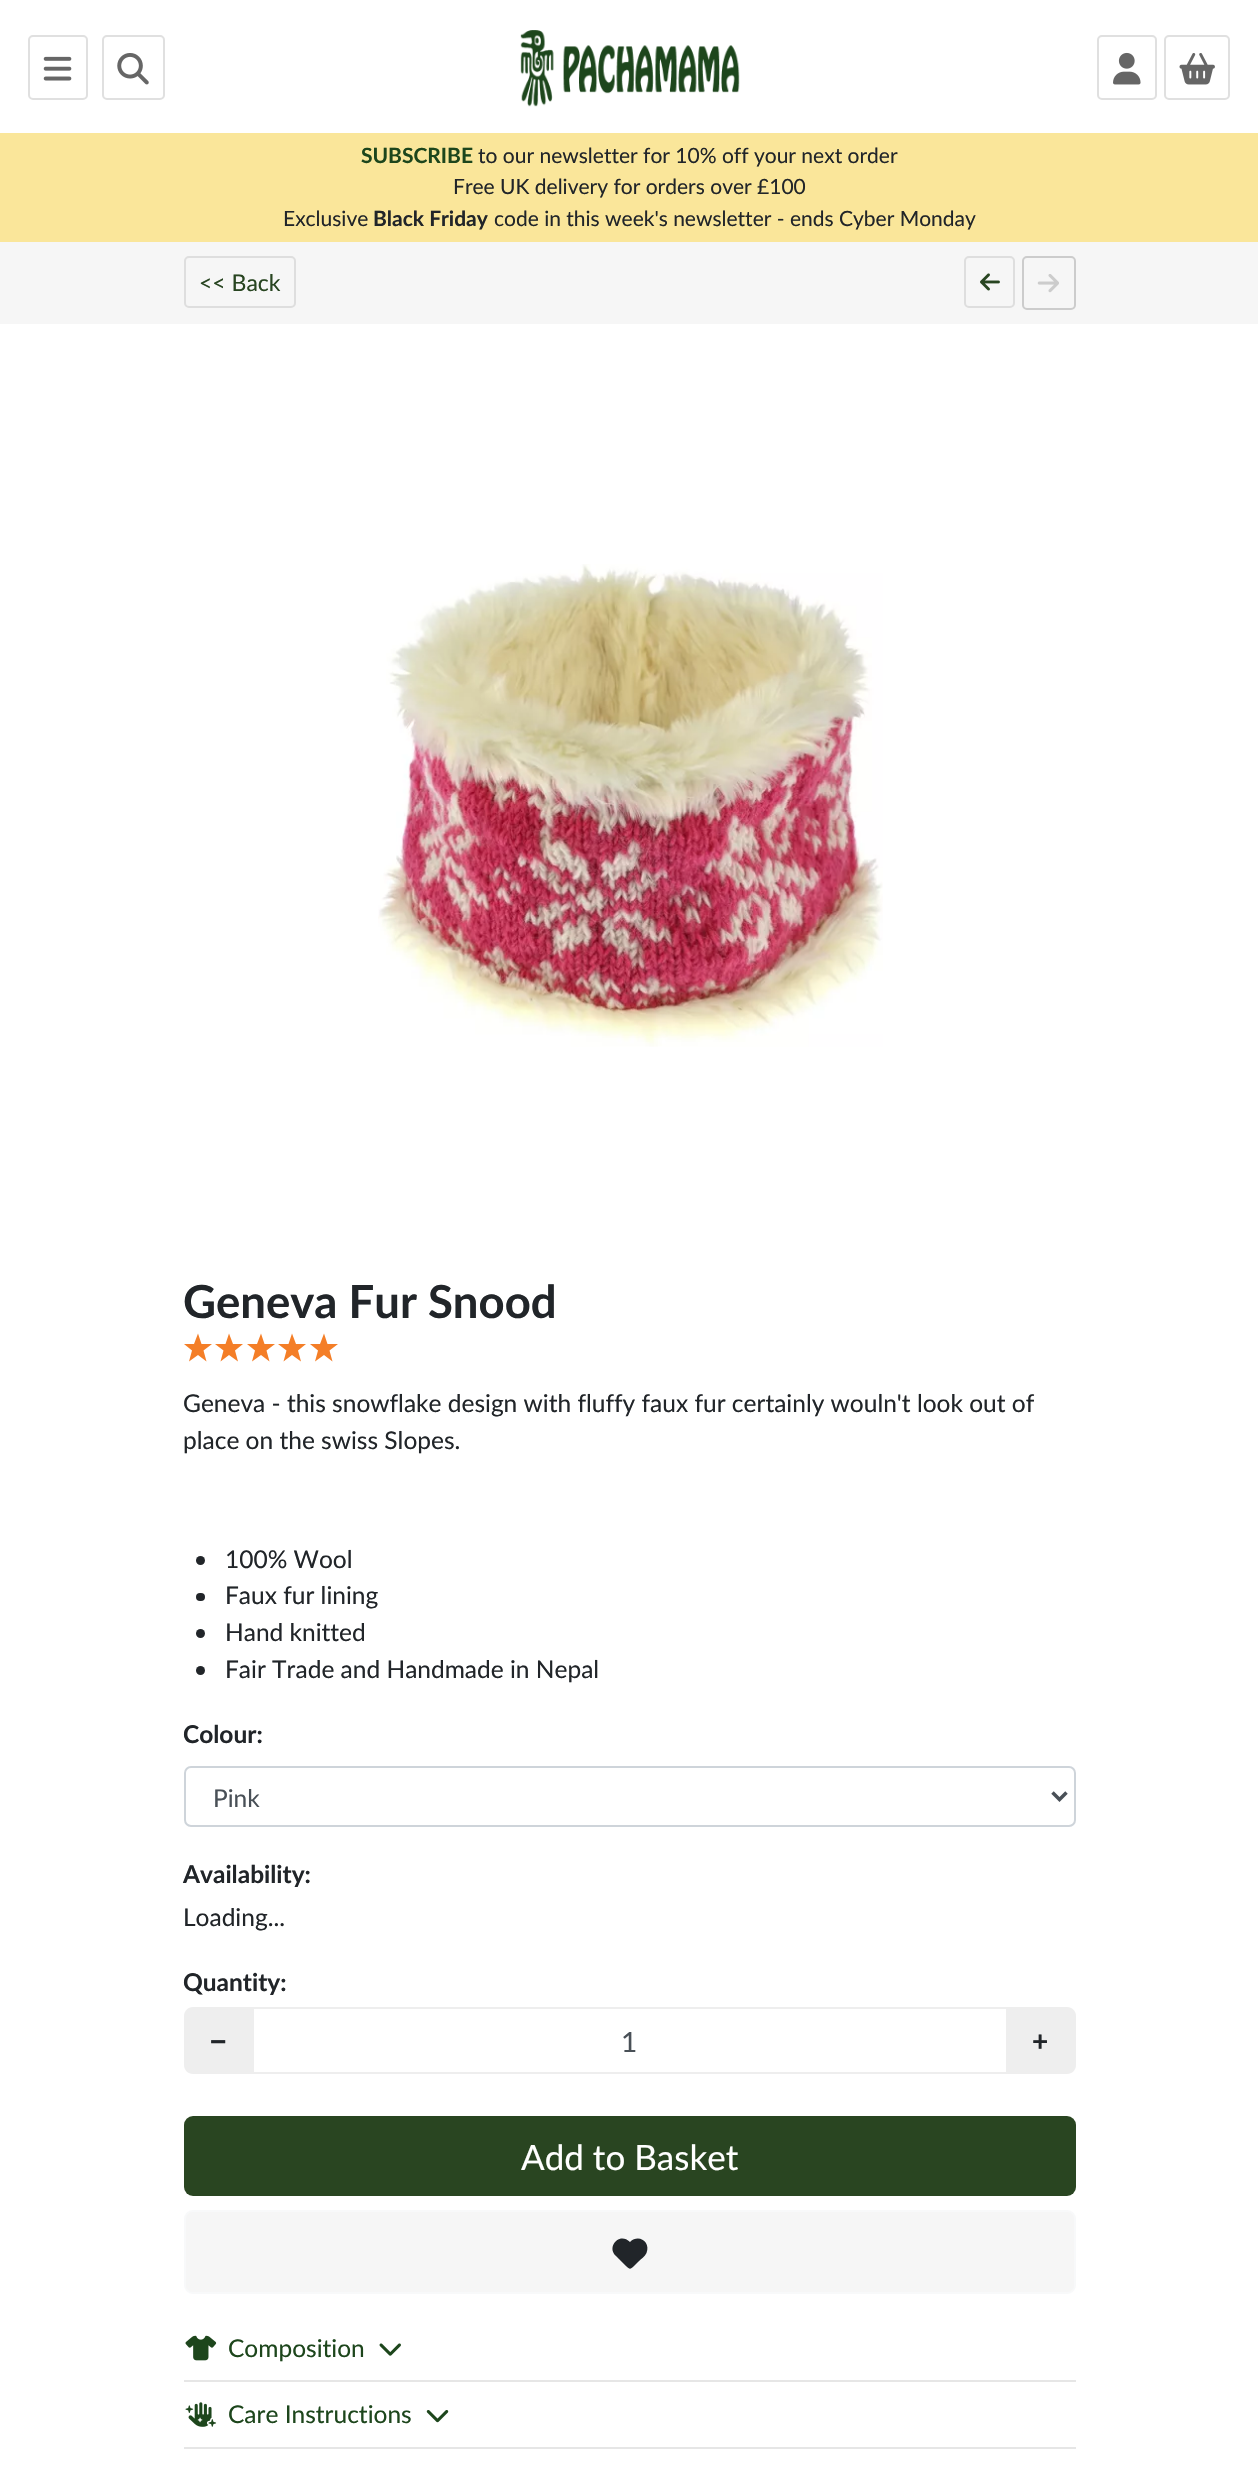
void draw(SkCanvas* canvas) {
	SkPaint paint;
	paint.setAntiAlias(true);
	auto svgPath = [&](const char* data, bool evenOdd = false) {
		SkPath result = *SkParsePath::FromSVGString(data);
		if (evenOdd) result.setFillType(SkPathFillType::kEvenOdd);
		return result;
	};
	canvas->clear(0xffffffff);
	paint.setStroke(true);
	paint.setStrokeWidth(2);
	paint.setColor(0xffe0e0e0);
	canvas->drawRoundRect(SkRect::MakeXYWH(29, 36, 58, 63), 4, 4, paint);
	canvas->drawImageRect(SkImages::DeferredFromEncodedData(SkData::MakeFromFileName("img1.png")), SkRect::MakeXYWH(43, 56, 29, 25), SkSamplingOptions());
	canvas->drawRoundRect(SkRect::MakeXYWH(103, 36, 61, 63), 4, 4, paint);
	canvas->drawImageRect(SkImages::DeferredFromEncodedData(SkData::MakeFromFileName("img2.png")), SkRect::MakeXYWH(117, 53, 32, 32), SkSamplingOptions());
	canvas->drawImageRect(SkImages::DeferredFromEncodedData(SkData::MakeFromFileName("img3.png")), SkRect::MakeXYWH(520, 30, 220, 77), SkSamplingOptions());
	canvas->drawRoundRect(SkRect::MakeXYWH(1098, 36, 58, 63), 4, 4, paint);
	canvas->drawImageRect(SkImages::DeferredFromEncodedData(SkData::MakeFromFileName("img4.png")), SkRect::MakeXYWH(1113, 52, 28, 33), SkSamplingOptions());
	canvas->drawRoundRect(SkRect::MakeXYWH(1165, 36, 64, 63), 4, 4, paint);
	canvas->drawImageRect(SkImages::DeferredFromEncodedData(SkData::MakeFromFileName("img5.png")), SkRect::MakeXYWH(1179, 53, 36, 32), SkSamplingOptions());
	paint.setStroke(false);
	paint.setColor(0xfffae69a);
	canvas->drawRect(SkRect::MakeXYWH(0, 133, 1258, 109), paint);
	SkFont f1(fontMgr->matchFamilyStyle("Lato", SkFontStyle::Bold()), 21);
	f1.setSubpixel(true);
	paint.setColor(0xff1d461c);
	canvas->drawString("SUBSCRIBE", 361, 163, f1, paint);
	SkFont f2(fontMgr->matchFamilyStyle("Lato", SkFontStyle::Normal()), 21);
	f2.setSubpixel(true);
	paint.setColor(0xff212529);
	canvas->drawString("to our newsletter for 10% off your next order", 478, 163, f2, paint);
	canvas->drawString("Free UK delivery for orders over £100", 453, 194, f2, paint);
	canvas->drawString("Exclusive", 283, 226, f2, paint);
	canvas->drawString("Black Friday", 373, 226, f1, paint);
	canvas->drawString("code in this week's newsletter - ends Cyber Monday", 494, 226, f2, paint);
	paint.setColor(0xfff6f6f6);
	canvas->drawRect(SkRect::MakeXYWH(0, 242, 1258, 82), paint);
	paint.setStroke(true);
	paint.setColor(0xffdedede);
	canvas->drawRoundRect(SkRect::MakeXYWH(185, 257, 110, 50), 4, 4, paint);
	SkFont f3(fontMgr->matchFamilyStyle("Lato", SkFontStyle::Normal()), 23);
	f3.setSubpixel(true);
	paint.setStroke(false);
	paint.setColor(0xff284521);
	canvas->drawString("<< Back", 199, 291, f3, paint);
	paint.setStroke(true);
	paint.setColor(0xffdedede);
	canvas->drawRoundRect(SkRect::MakeXYWH(965, 257, 49, 50), 4, 4, paint);
	canvas->drawImageRect(SkImages::DeferredFromEncodedData(SkData::MakeFromFileName("img6.png")), SkRect::MakeXYWH(980, 273, 20, 18), SkSamplingOptions());
	paint.setColor(0xffcccccc);
	canvas->drawRoundRect(SkRect::MakeXYWH(1023, 257, 52, 52), 4, 4, paint);
	canvas->drawImageRect(SkImages::DeferredFromEncodedData(SkData::MakeFromFileName("img7.png")), SkRect::MakeXYWH(1037, 274, 22, 19), SkSamplingOptions());
	canvas->drawImageRect(SkImages::DeferredFromEncodedData(SkData::MakeFromFileName("img8.png")), SkRect::MakeXYWH(378, 564, 505, 483), SkSamplingOptions());
	SkFont f4(fontMgr->matchFamilyStyle("Lato", SkFontStyle::Bold()), 45.5);
	f4.setSubpixel(true);
	paint.setStroke(false);
	paint.setColor(0xff212529);
	canvas->drawString("Geneva Fur Snood", 183, 1318, f4, paint);
	paint.setColor(0xfff47e27);
	canvas->drawPath(svgPath("M212 1344L203.5 1350.5L206.5 1361.5L198 1355L189 1361.5L192 1350.5L184 1344H194L198 1333.5L201.5 1344ZM243 1344L235 1350.5L238 1361.5L229 1355L220.5 1361.5L223.5 1350.5L215 1344H225.5L229 1333.5L233 1344Z"), paint);
	canvas->drawPath(svgPath("M275 1344L266.5 1350.5L269.5 1361.5L261 1355L252 1361.5L255 1350.5L247 1344H257L261 1333.5L264.5 1344ZM306 1344L298 1350.5L301 1361.5L292 1355L283.5 1361.5L286.5 1350.5L278 1344H288.5L292 1333.5L296 1344Z"), paint);
	canvas->drawPath(svgPath("M338 1344L329.5 1350.5L332.5 1361.5L324 1355L315 1361.5L318 1350.5L310 1344H320L324 1333.5L327.5 1344Z"), paint);
	SkFont f5(fontMgr->matchFamilyStyle("Lato", SkFontStyle::Normal()), 24.5);
	f5.setSubpixel(true);
	paint.setColor(0xff212529);
	canvas->drawString("Geneva - this snowflake design with fluffy faux fur certainly wouln't look out of", 183, 1412, f5, paint);
	canvas->drawString("place on the swiss Slopes.", 183, 1449, f5, paint);
	canvas->drawCircle(200.5, 1560.5, 4.5, paint);
	canvas->drawString("100% Wool", 225, 1568, f5, paint);
	canvas->drawRoundRect(SkRect::MakeXYWH(196, 1593, 9, 8), 4, 4, paint);
	canvas->drawString("Faux fur lining", 225, 1604, f5, paint);
	canvas->drawCircle(200.5, 1633.5, 4.5, paint);
	canvas->drawString("Hand knitted", 225, 1641, f5, paint);
	canvas->drawCircle(200.5, 1670.5, 4.5, paint);
	canvas->drawString("Fair Trade and Handmade in Nepal", 225, 1678, f5, paint);
	SkFont f6(fontMgr->matchFamilyStyle("Lato", SkFontStyle::Bold()), 24.5);
	f6.setSubpixel(true);
	canvas->drawString("Colour:", 183, 1743, f6, paint);
	paint.setStroke(true);
	paint.setColor(0xffced4da);
	canvas->drawRoundRect(SkRect::MakeXYWH(185, 1767, 890, 59), 6, 6, paint);
	paint.setStrokeWidth(3.5);
	paint.setColor(0xff495057);
	canvas->drawPath(svgPath("M1052.5 1792.5L1059.5 1799.5L1066.5 1792.5"), paint);
	paint.setStroke(false);
	canvas->drawString("Pink", 213, 1807, f5, paint);
	paint.setColor(0xff212529);
	canvas->drawString("Availability:", 183, 1883, f6, paint);
	canvas->drawString("Loading...", 183, 1926, f5, paint);
	canvas->drawString("Quantity:", 183, 1991, f6, paint);
	paint.setStroke(true);
	paint.setStrokeWidth(2);
	paint.setColor(0xffeeeeee);
	canvas->drawRect(SkRect::MakeXYWH(253, 2008, 754, 65), paint);
	paint.setStroke(false);
	canvas->drawPath(svgPath("M193 2007H254V2074H193C188 2074 184 2070 184 2065V2016C184 2011 188 2007 193 2007Z"), paint);
	SkFont f7(fontMgr->matchFamilyStyle("Liberation Sans", SkFontStyle::Bold()), 28);
	f7.setSubpixel(true);
	paint.setColor(0xff212529);
	canvas->drawString("−", 210, 2051, f7, paint);
	SkFont f8(fontMgr->matchFamilyStyle("Lato", SkFontStyle::Normal()), 28);
	f8.setSubpixel(true);
	paint.setColor(0xff495057);
	canvas->drawString("1", 621, 2052, f8, paint);
	paint.setColor(0xffeeeeee);
	canvas->drawPath(svgPath("M1006 2007H1067C1072 2007 1076 2011 1076 2016V2065C1076 2070 1072 2074 1067 2074H1006Z"), paint);
	SkFont f9(fontMgr->matchFamilyStyle("Lato", SkFontStyle::Bold()), 28);
	f9.setSubpixel(true);
	paint.setColor(0xff212529);
	canvas->drawString("+", 1032, 2051, f9, paint);
	paint.setColor(0xff294521);
	canvas->drawRoundRect(SkRect::MakeXYWH(184, 2116, 892, 80), 9, 9, paint);
	SkFont f10(fontMgr->matchFamilyStyle("Lato", SkFontStyle::Normal()), 35);
	f10.setSubpixel(true);
	paint.setColor(0xffffffff);
	canvas->drawString("Add to Basket", 521, 2170, f10, paint);
	paint.setColor(0xfff6f6f6);
	canvas->drawRoundRect(SkRect::MakeXYWH(185, 2211, 890, 82), 8, 8, paint);
	paint.setStroke(true);
	paint.setColor(0xfff8f9fa);
	canvas->drawRoundRect(SkRect::MakeXYWH(185, 2211, 890, 82), 8, 8, paint);
	paint.setStroke(false);
	paint.setColor(0xff212529);
	canvas->drawPath(svgPath("M616 2256L626 2266C630 2269.5 630 2269.5 634 2266L638 2262C641 2259 645 2256.5 646.5 2253C651 2242.5 639 2233.5 630 2242C619.5 2231.5 606 2247 616 2256Z"), paint);
	canvas->drawImageRect(SkImages::DeferredFromEncodedData(SkData::MakeFromFileName("img9.png")), SkRect::MakeXYWH(185, 2335, 32, 26), SkSamplingOptions());
	paint.setColor(0xff1d461c);
	canvas->drawString("Composition", 228, 2357, f5, paint);
	canvas->drawImageRect(SkImages::DeferredFromEncodedData(SkData::MakeFromFileName("img10.png")), SkRect::MakeXYWH(379, 2343, 22, 13), SkSamplingOptions());
	paint.setColor(0xffe6e6e6);
	canvas->drawRect(SkRect::MakeXYWH(184, 2380, 892, 2), paint);
	canvas->drawImageRect(SkImages::DeferredFromEncodedData(SkData::MakeFromFileName("img11.png")), SkRect::MakeXYWH(185, 2402, 32, 25), SkSamplingOptions());
	paint.setColor(0xff1d461c);
	canvas->drawString("Care Instructions", 228, 2423, f5, paint);
	canvas->drawImageRect(SkImages::DeferredFromEncodedData(SkData::MakeFromFileName("img12.png")), SkRect::MakeXYWH(426, 2410, 23, 13), SkSamplingOptions());
	paint.setColor(0xffe6e6e6);
	canvas->drawRect(SkRect::MakeXYWH(184, 2447, 892, 2), paint);
}
